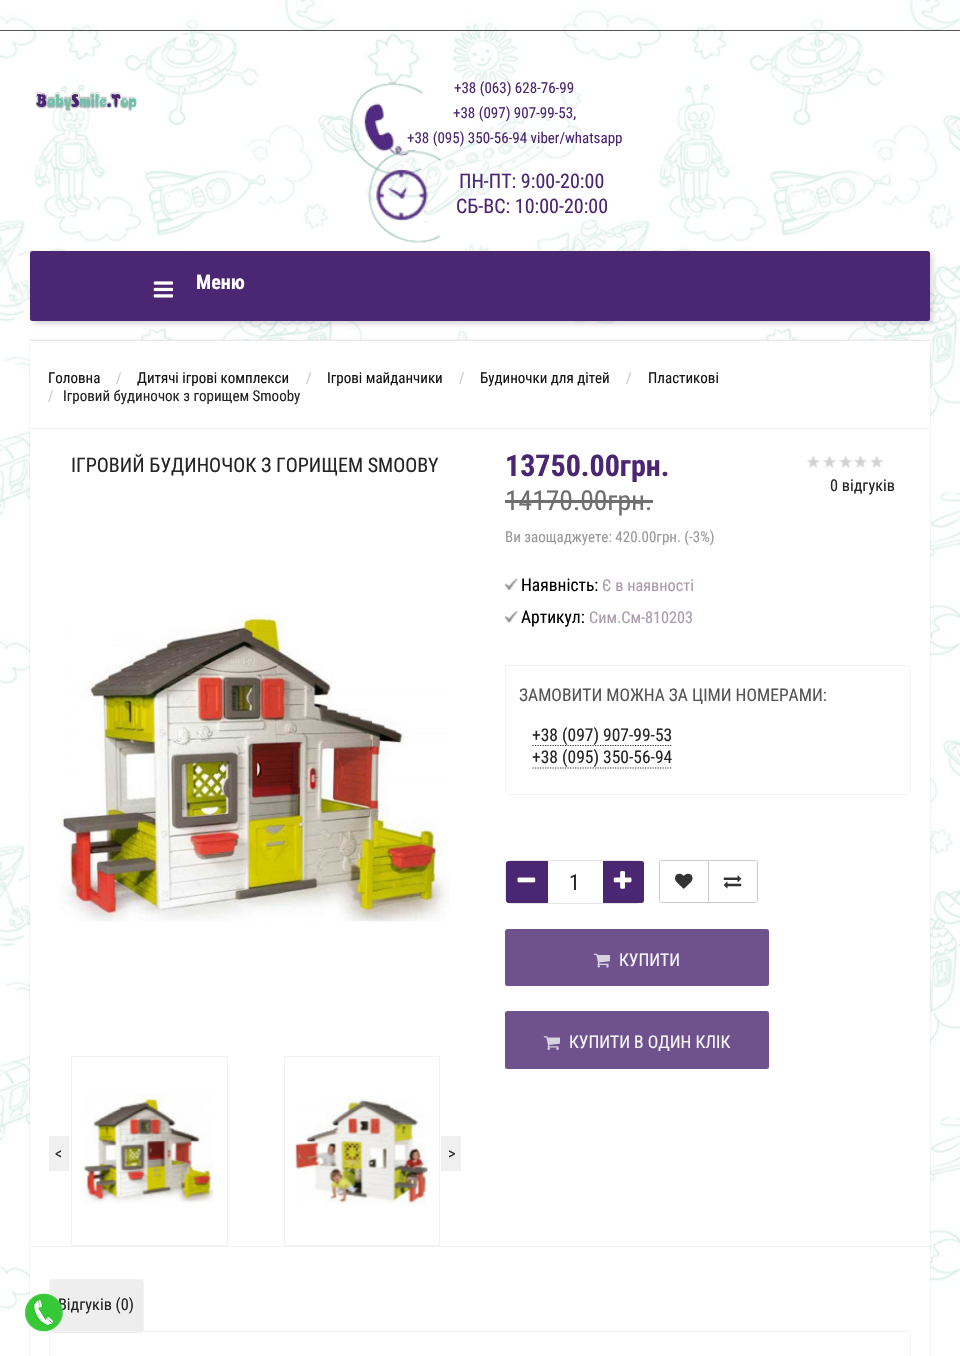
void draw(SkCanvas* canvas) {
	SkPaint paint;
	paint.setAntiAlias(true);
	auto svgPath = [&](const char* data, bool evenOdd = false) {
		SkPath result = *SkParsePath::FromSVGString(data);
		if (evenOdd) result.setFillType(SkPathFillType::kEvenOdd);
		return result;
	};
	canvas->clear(0xffffffff);
	canvas->drawImageRect(SkImages::DeferredFromEncodedData(SkData::MakeFromFileName("img1.png")), SkRect::MakeXYWH(0, 0, 960, 1356), SkSamplingOptions());
	paint.setColor(0x33f9fff9);
	canvas->drawRect(SkRect::MakeXYWH(4, 0, 955, 30), paint);
	paint.setColor(0xff525252);
	canvas->drawRect(SkRect::MakeXYWH(0, 30, 960, 1), paint);
	canvas->drawImageRect(SkImages::DeferredFromEncodedData(SkData::MakeFromFileName("img2.png")), SkRect::MakeXYWH(35, 92, 102, 20), SkSamplingOptions());
	paint.setColor(0x1a000000);
	paint.setMaskFilter(SkMaskFilter::MakeBlur(kNormal_SkBlurStyle, 1));
	canvas->drawRect(SkRect::MakeXYWH(30, 340, 900, 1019), paint);
	paint.setMaskFilter(nullptr);
	paint.setColor(0xffffffff);
	canvas->drawRect(SkRect::MakeXYWH(30, 341, 900, 1015), paint);
	paint.setColor(0xfff2f2f2);
	canvas->drawRect(SkRect::MakeXYWH(49, 1281, 1, 50), paint);
	paint.setStroke(true);
	paint.setStrokeWidth(1);
	canvas->drawPath(svgPath("M49.5 1331.5H907C909 1331.5 910.5 1333 910.5 1335V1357C910.5 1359 909 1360.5 907 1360.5H53C51 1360.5 49.5 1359 49.5 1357Z"), paint);
	paint.setStroke(false);
	paint.setColor(0xffeeeeee);
	canvas->drawRect(SkRect::MakeXYWH(51, 1280, 92, 53), paint);
	paint.setColor(0xfff2f2f2);
	canvas->drawRect(SkRect::MakeXYWH(50, 1279, 93, 1), paint);
	canvas->drawRect(SkRect::MakeXYWH(50, 1331, 93, 1), paint);
	canvas->drawRect(SkRect::MakeXYWH(50, 1279, 1, 54), paint);
	SkFont f1(fontMgr->matchFamilyStyle("Roboto Condensed", SkFontStyle::Normal()), 16.25);
	f1.setSubpixel(true);
	paint.setColor(0xff252525);
	canvas->drawString("Відгуків (0)", 58, 1310, f1, paint);
	paint.setColor(0x8037c837);
	canvas->drawRoundRect(SkRect::MakeXYWH(25, 1294, 38, 37), 18.5, 18.5, paint);
	canvas->drawImageRect(SkImages::DeferredFromEncodedData(SkData::MakeFromFileName("img3.png")), SkRect::MakeXYWH(25, 1293, 38, 39), SkSamplingOptions());
	canvas->drawImageRect(SkImages::DeferredFromEncodedData(SkData::MakeFromFileName("img4.png")), SkRect::MakeXYWH(350, 82, 73, 94), SkSamplingOptions());
	SkFont f2(fontMgr->matchFamilyStyle("Roboto Condensed", SkFontStyle::Normal()), 15);
	f2.setSubpixel(true);
	paint.setColor(0xff4b2672);
	canvas->drawString("+38 (063) 628-76-99", 454, 93, f2, paint);
	canvas->drawString("+38 (097) 907-99-53,", 453, 118, f2, paint);
	canvas->drawString("+38 (095) 350-56-94 viber/whatsapp", 407, 143, f2, paint);
	canvas->drawImageRect(SkImages::DeferredFromEncodedData(SkData::MakeFromFileName("img5.png")), SkRect::MakeXYWH(368, 150, 74, 93), SkSamplingOptions());
	SkFont f3(fontMgr->matchFamilyStyle("Roboto Condensed", SkFontStyle::Normal()), 20);
	f3.setSubpixel(true);
	canvas->drawString("ПН-ПТ: 9:00-20:00", 459, 188, f3, paint);
	canvas->drawString("СБ-ВС: 10:00-20:00", 456, 213, f3, paint);
	paint.setColor(0x26000000);
	paint.setMaskFilter(SkMaskFilter::MakeBlur(kNormal_SkBlurStyle, 2.5));
	canvas->drawRoundRect(SkRect::MakeXYWH(33, 254, 900, 70), 2.5, 2.5, paint);
	paint.setMaskFilter(nullptr);
	paint.setColor(0xff4b2672);
	canvas->drawRoundRect(SkRect::MakeXYWH(30, 251, 900, 70), 2.5, 2.5, paint);
	canvas->drawImageRect(SkImages::DeferredFromEncodedData(SkData::MakeFromFileName("img6.png")), SkRect::MakeXYWH(153, 281, 21, 17), SkSamplingOptions());
	SkFont f4(fontMgr->matchFamilyStyle("Roboto Condensed", SkFontStyle::Bold()), 20);
	f4.setSubpixel(true);
	paint.setColor(0xffffffff);
	canvas->drawString("Меню", 196, 289, f4, paint);
	paint.setColor(0xffeaeaea);
	canvas->drawRect(SkRect::MakeXYWH(30, 340, 900, 1), paint);
	paint.setColor(0xff141414);
	canvas->drawString("Головна", 48, 383, f2, paint);
	paint.setColor(0xffcccccc);
	canvas->drawString("/", 116, 383, f2, paint);
	paint.setColor(0xff141414);
	canvas->drawString("Дитячі ігрові комплекси", 137, 383, f2, paint);
	paint.setColor(0xffcccccc);
	canvas->drawString("/", 306, 383, f2, paint);
	paint.setColor(0xff141414);
	canvas->drawString("Ігрові майданчики", 327, 383, f2, paint);
	paint.setColor(0xffcccccc);
	canvas->drawString("/", 459, 383, f2, paint);
	paint.setColor(0xff141414);
	canvas->drawString("Будиночки для дітей", 480, 383, f2, paint);
	paint.setColor(0xffcccccc);
	canvas->drawString("/", 626, 383, f2, paint);
	paint.setColor(0xff141414);
	canvas->drawString("Пластикові", 648, 383, f2, paint);
	paint.setColor(0xffcccccc);
	canvas->drawString("/", 48, 401, f2, paint);
	paint.setColor(0xff252525);
	canvas->drawString("Ігровий будиночок з горищем Smooby", 63, 401, f2, paint);
	paint.setColor(0xfff2f2f2);
	canvas->drawRect(SkRect::MakeXYWH(30, 428, 900, 1), paint);
	paint.setColor(0xff252525);
	canvas->drawString("ІГРОВИЙ БУДИНОЧОК З ГОРИЩЕМ SMOOBY", 71, 472, f3, paint);
	canvas->drawImageRect(SkImages::DeferredFromEncodedData(SkData::MakeFromFileName("img7.png")), SkRect::MakeXYWH(60, 614, 390, 308), SkSamplingOptions());
	paint.setStroke(true);
	paint.setColor(0xfff2f2f2);
	canvas->drawRect(SkRect::MakeXYWH(71.5, 1056.5, 156, 189), paint);
	canvas->drawImageRect(SkImages::DeferredFromEncodedData(SkData::MakeFromFileName("img8.png")), SkRect::MakeXYWH(83, 1093, 131, 111), SkSamplingOptions());
	canvas->drawRect(SkRect::MakeXYWH(284.5, 1056.5, 155, 189), paint);
	canvas->drawImageRect(SkImages::DeferredFromEncodedData(SkData::MakeFromFileName("img9.png")), SkRect::MakeXYWH(295, 1095, 133, 109), SkSamplingOptions());
	paint.setStroke(false);
	paint.setColor(0xfff0f0f0);
	canvas->drawRect(SkRect::MakeXYWH(49, 1136, 20, 35), paint);
	paint.setColor(0xff252525);
	canvas->drawString("<", 55, 1159, f1, paint);
	paint.setColor(0xfff0f0f0);
	canvas->drawRect(SkRect::MakeXYWH(441, 1136, 20, 35), paint);
	paint.setColor(0xff252525);
	canvas->drawString(">", 448, 1159, f1, paint);
	SkFont f5(fontMgr->matchFamilyStyle("Roboto Condensed", SkFontStyle::Bold()), 30);
	f5.setSubpixel(true);
	paint.setColor(0xff4b2672);
	canvas->drawString("13750.00грн.", 505, 476, f5, paint);
	SkFont f6(fontMgr->matchFamilyStyle("Roboto Condensed", SkFontStyle::Normal()), 27.5);
	f6.setSubpixel(true);
	paint.setColor(0xff6f6f6f);
	canvas->drawString("14170.00грн.", 505, 510, f6, paint);
	canvas->drawRect(SkRect::MakeXYWH(505, 500, 148, 3), paint);
	paint.setColor(0xff999999);
	canvas->drawString("Ви заощаджуете: 420.00грн. (-3%)", 505, 542, f2, paint);
	canvas->drawImageRect(SkImages::DeferredFromEncodedData(SkData::MakeFromFileName("img10.png")), SkRect::MakeXYWH(806, 455, 78, 13), SkSamplingOptions());
	paint.setColor(0xff252525);
	canvas->drawString("0 відгуків", 830, 491, f1, paint);
	canvas->drawImageRect(SkImages::DeferredFromEncodedData(SkData::MakeFromFileName("img11.png")), SkRect::MakeXYWH(505, 578, 13, 12), SkSamplingOptions());
	SkFont f7(fontMgr->matchFamilyStyle("Roboto Condensed", SkFontStyle::Normal()), 17.5);
	f7.setSubpixel(true);
	paint.setColor(0xff000000);
	canvas->drawString("Наявність:", 521, 591, f7, paint);
	paint.setColor(0xffaa99aa);
	canvas->drawString("Є в наявності", 602, 591, f1, paint);
	canvas->drawImageRect(SkImages::DeferredFromEncodedData(SkData::MakeFromFileName("img12.png")), SkRect::MakeXYWH(505, 611, 13, 12), SkSamplingOptions());
	paint.setColor(0xff000000);
	canvas->drawString("Артикул:", 521, 623, f7, paint);
	paint.setColor(0xffaa99aa);
	canvas->drawString("Сим.См-810203", 589, 623, f1, paint);
	paint.setStroke(true);
	paint.setColor(0xfff2f2f2);
	canvas->drawPath(svgPath("M505.5 665.5H907C909 665.5 910.5 667 910.5 669V791C910.5 793 909 794.5 907 794.5H509C507 794.5 505.5 793 505.5 791Z"), paint);
	paint.setStroke(false);
	paint.setColor(0xff555555);
	canvas->drawString("ЗАМОВИТИ МОЖНА ЗА ЦІМИ НОМЕРАМИ:", 519, 701, f7, paint);
	paint.setStroke(true);
	paint.setStrokeWidth(1.2);
	paint.setColor(0xff333333);
	paint.setPathEffect(SkDashPathEffect::Make({{1.25f, 1.25f}}, 0));
	canvas->drawPath(svgPath("M532.5 745.5H672.5"), paint);
	paint.setPathEffect(nullptr);
	paint.setStroke(false);
	paint.setColor(0xff252525);
	canvas->drawString("+38 (097) 907-99-53", 532, 741, f7, paint);
	canvas->drawString("+38 (095) 350-56-94", 532, 763, f7, paint);
	paint.setStroke(true);
	paint.setColor(0xff333333);
	paint.setPathEffect(SkDashPathEffect::Make({{1.25f, 1.25f}}, 0));
	canvas->drawPath(svgPath("M532.5 768H672.5"), paint);
	paint.setPathEffect(nullptr);
	paint.setStrokeWidth(1);
	paint.setColor(0xffe5e5e5);
	canvas->drawRoundRect(SkRect::MakeXYWH(505.5, 860.5, 137, 43), 5.5, 5.5, paint);
	paint.setStroke(false);
	paint.setColor(0xff4b2672);
	canvas->drawPath(svgPath("M508.5 861H548V903H508.5C507 903 506 902 506 900.5V863.5C506 862 507 861 508.5 861Z"), paint);
	canvas->drawImageRect(SkImages::DeferredFromEncodedData(SkData::MakeFromFileName("img13.png")), SkRect::MakeXYWH(517, 877, 19, 6), SkSamplingOptions());
	canvas->drawPath(svgPath("M603 861H641.5C643 861 644 862 644 863.5V900.5C644 902 643 903 641.5 903H603Z"), paint);
	canvas->drawImageRect(SkImages::DeferredFromEncodedData(SkData::MakeFromFileName("img14.png")), SkRect::MakeXYWH(613, 871, 19, 18), SkSamplingOptions());
	SkFont f8(fontMgr->matchFamilyStyle("Roboto Condensed", SkFontStyle::Normal()), 22);
	f8.setSubpixel(true);
	paint.setColor(0xff252525);
	canvas->drawString("1", 569, 890, f8, paint);
	paint.setStroke(true);
	paint.setColor(0xffcccccc);
	canvas->drawPath(svgPath("M661.5 860.5H708.5V902.5H661.5C660.5 902.5 659.5 901.5 659.5 900.5V862.5C659.5 861.5 660.5 860.5 661.5 860.5Z"), paint);
	canvas->drawImageRect(SkImages::DeferredFromEncodedData(SkData::MakeFromFileName("img15.png")), SkRect::MakeXYWH(675, 873, 18, 16), SkSamplingOptions());
	paint.setStroke(false);
	paint.setColor(0xffffffff);
	canvas->drawPath(svgPath("M708.5 860.5H755.5C756.5 860.5 757.5 861.5 757.5 862.5V900.5C757.5 901.5 756.5 902.5 755.5 902.5H708.5Z"), paint);
	paint.setStroke(true);
	paint.setColor(0xffcccccc);
	canvas->drawPath(svgPath("M708.5 860.5H755.5C756.5 860.5 757.5 861.5 757.5 862.5V900.5C757.5 901.5 756.5 902.5 755.5 902.5H708.5Z"), paint);
	canvas->drawImageRect(SkImages::DeferredFromEncodedData(SkData::MakeFromFileName("img16.png")), SkRect::MakeXYWH(723, 875, 19, 14), SkSamplingOptions());
	paint.setStroke(false);
	paint.setColor(0xff6f518e);
	canvas->drawRoundRect(SkRect::MakeXYWH(505, 929, 264, 57), 2.5, 2.5, paint);
	canvas->drawImageRect(SkImages::DeferredFromEncodedData(SkData::MakeFromFileName("img17.png")), SkRect::MakeXYWH(593, 953, 17, 15), SkSamplingOptions());
	paint.setColor(0xfff5f5f5);
	canvas->drawString("КУПИТИ", 619, 966, f7, paint);
	paint.setColor(0xff6f518e);
	canvas->drawRoundRect(SkRect::MakeXYWH(505, 1011, 264, 58), 2.5, 2.5, paint);
	canvas->drawImageRect(SkImages::DeferredFromEncodedData(SkData::MakeFromFileName("img18.png")), SkRect::MakeXYWH(543, 1036, 17, 14), SkSamplingOptions());
	paint.setColor(0xfff5f5f5);
	canvas->drawString("КУПИТИ В ОДИН КЛІК", 569, 1048, f7, paint);
	paint.setColor(0xfff2f2f2);
	canvas->drawRect(SkRect::MakeXYWH(30, 1246, 900, 1), paint);
	canvas->drawRect(SkRect::MakeXYWH(143, 1281, 1, 50), paint);
}
